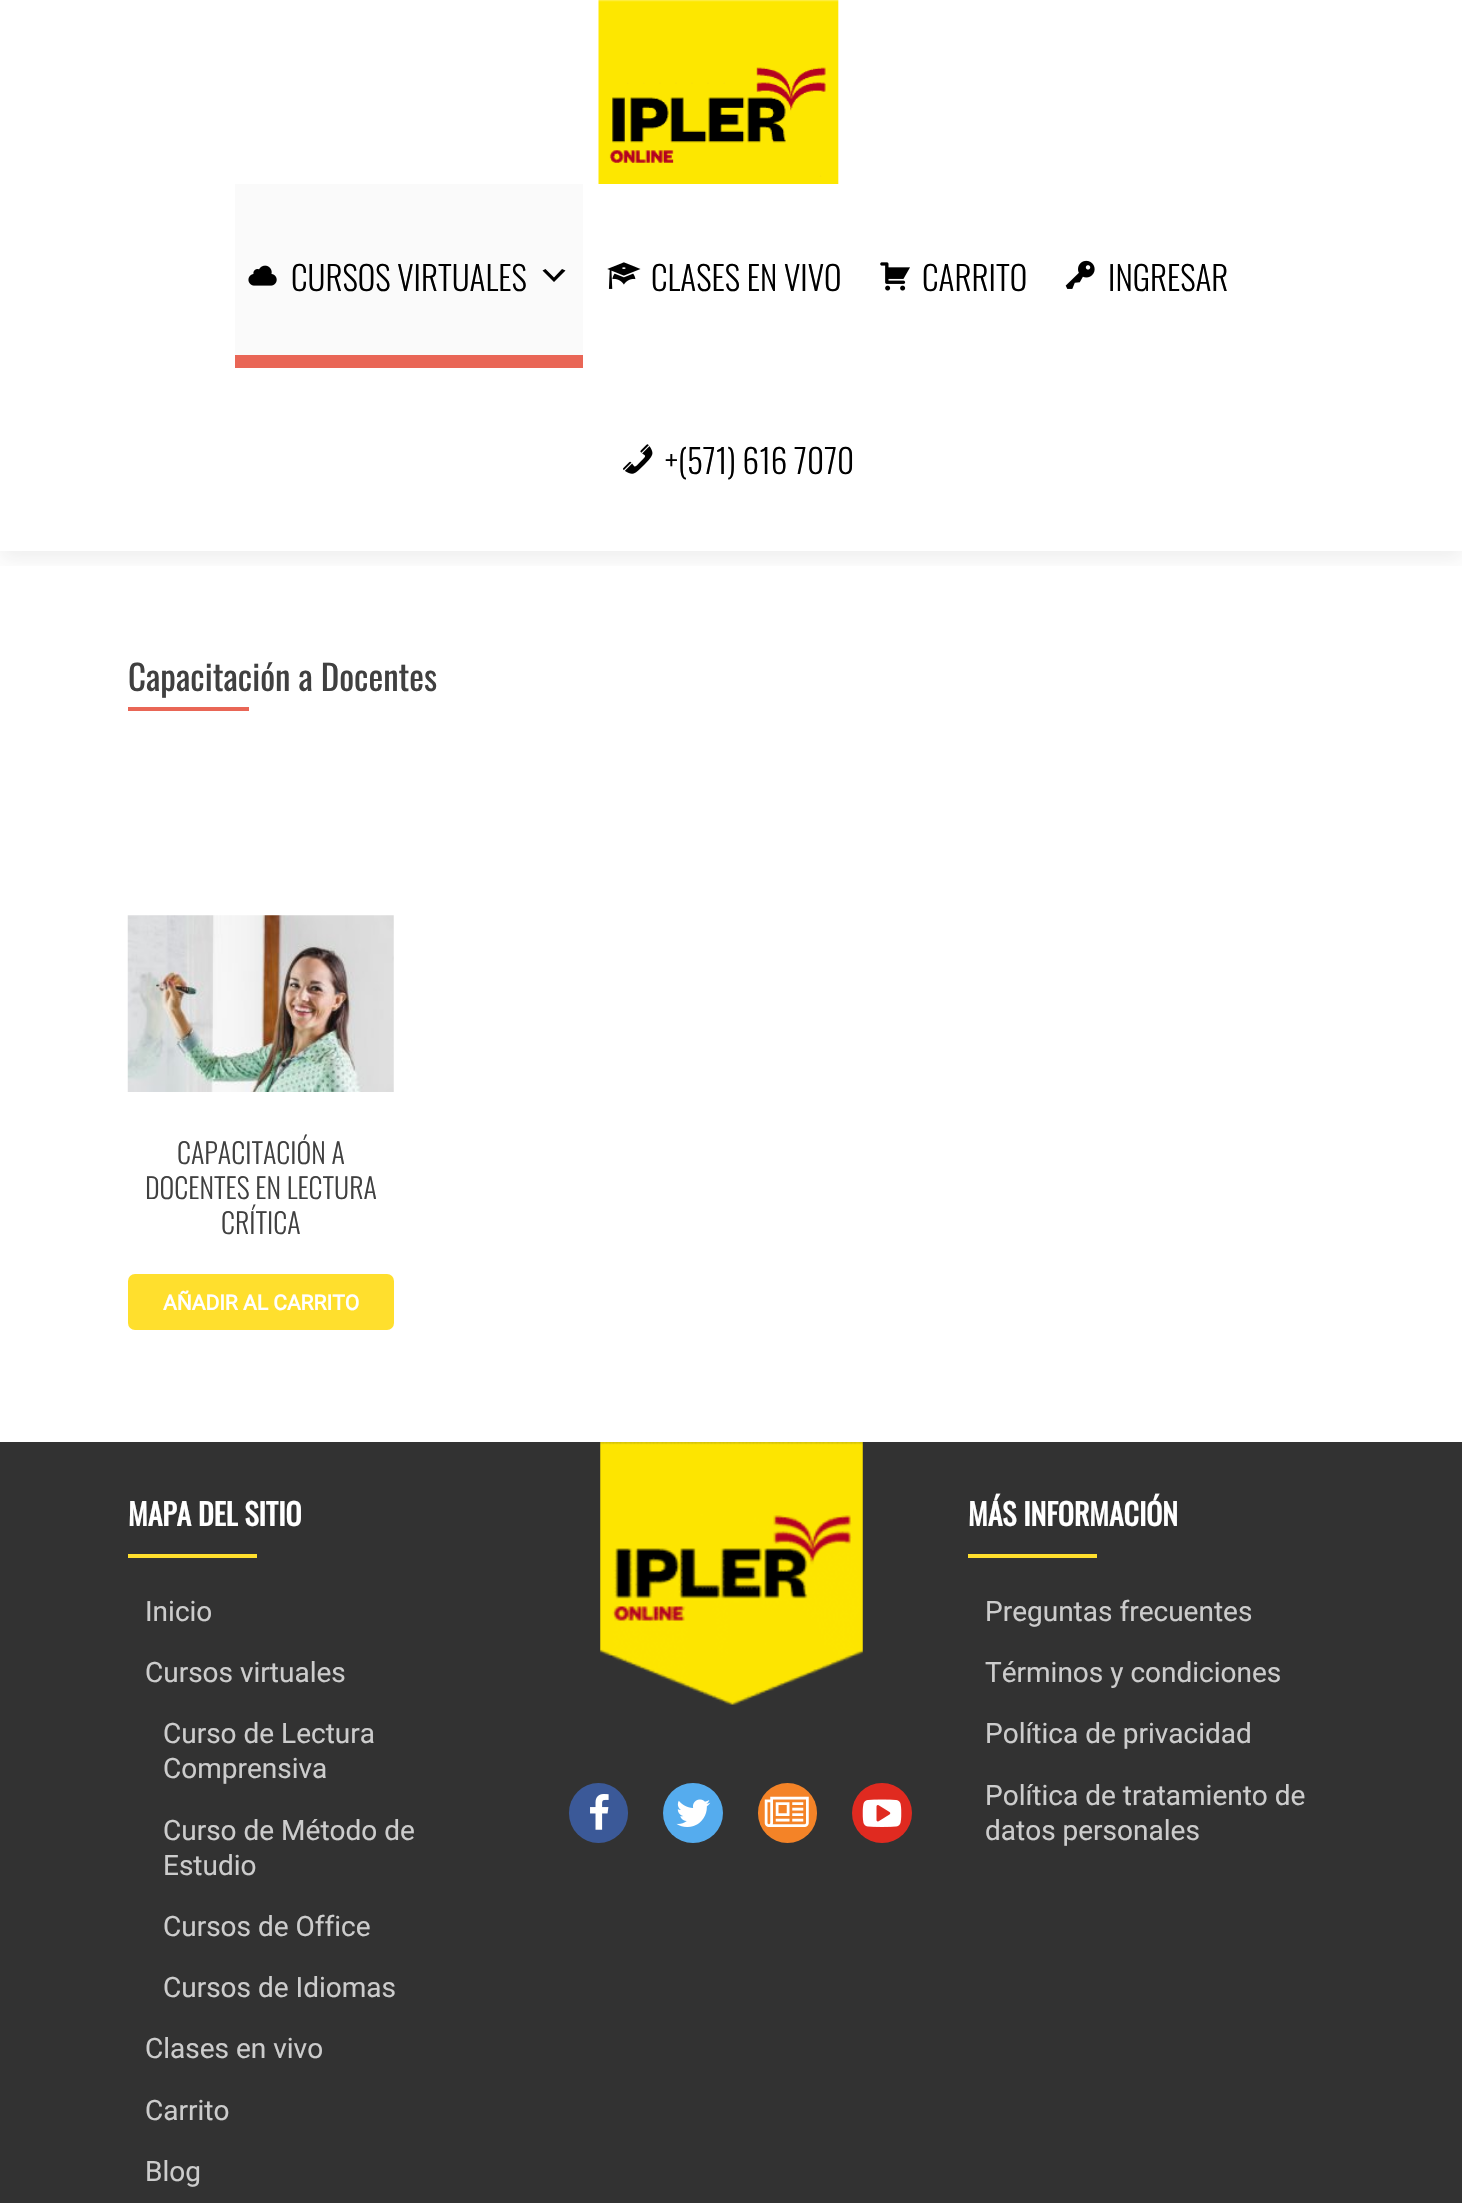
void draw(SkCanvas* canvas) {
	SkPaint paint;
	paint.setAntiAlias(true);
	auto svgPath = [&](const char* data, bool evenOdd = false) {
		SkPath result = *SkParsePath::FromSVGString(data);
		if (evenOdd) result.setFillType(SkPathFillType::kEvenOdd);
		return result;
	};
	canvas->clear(0xffffffff);
	canvas->save();
	canvas->clipRect(SkRect::MakeXYWH(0, 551, 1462, 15));
	paint.setColor(0x14323232);
	paint.setMaskFilter(SkMaskFilter::MakeBlur(kNormal_SkBlurStyle, 9.5));
	canvas->drawRect(SkRect::MakeXYWH(0, 9, 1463, 551), paint);
	paint.setMaskFilter(nullptr);
	canvas->restore();
	canvas->drawImageRect(SkImages::DeferredFromEncodedData(SkData::MakeFromFileName("img1.png")), SkRect::MakeXYWH(598, 0, 241, 184), SkSamplingOptions());
	paint.setColor(0xfffafafa);
	canvas->drawRect(SkRect::MakeXYWH(235, 184, 348, 171), paint);
	paint.setColor(0xffe96656);
	canvas->drawRect(SkRect::MakeXYWH(235, 355, 348, 13), paint);
	canvas->drawImageRect(SkImages::DeferredFromEncodedData(SkData::MakeFromFileName("img2.png")), SkRect::MakeXYWH(248, 265, 29, 21), SkSamplingOptions());
	SkFont f1(fontMgr->matchFamilyStyle("Oswald", SkFontStyle(300, SkFontStyle::kNormal_Width, SkFontStyle::kUpright_Slant)), 33.25);
	f1.setSubpixel(true);
	paint.setColor(0xff000000);
	canvas->drawString("CURSOS VIRTUALES", 291, 291, f1, paint);
	canvas->drawPath(svgPath("M545.5 269L554 277.5L562 269L565.5 270.5L554 282L542.5 270.5Z"), paint);
	canvas->drawImageRect(SkImages::DeferredFromEncodedData(SkData::MakeFromFileName("img3.png")), SkRect::MakeXYWH(607, 262, 34, 27), SkSamplingOptions());
	canvas->drawString("CLASES EN VIVO", 651, 291, f1, paint);
	canvas->drawImageRect(SkImages::DeferredFromEncodedData(SkData::MakeFromFileName("img4.png")), SkRect::MakeXYWH(880, 262, 30, 29), SkSamplingOptions());
	canvas->drawString("CARRITO", 922, 291, f1, paint);
	canvas->drawImageRect(SkImages::DeferredFromEncodedData(SkData::MakeFromFileName("img5.png")), SkRect::MakeXYWH(1065, 260, 30, 29), SkSamplingOptions());
	canvas->drawString("INGRESAR", 1108, 291, f1, paint);
	canvas->drawImageRect(SkImages::DeferredFromEncodedData(SkData::MakeFromFileName("img6.png")), SkRect::MakeXYWH(623, 444, 30, 30), SkSamplingOptions());
	canvas->drawString("+(571) 616 7070", 665, 474, f1, paint);
	SkFont f2(fontMgr->matchFamilyStyle("Oswald", SkFontStyle::Normal()), 35);
	f2.setSubpixel(true);
	paint.setColor(0xff404040);
	canvas->drawString("Capacitación a Docentes", 128, 691, f2, paint);
	paint.setColor(0xffe96656);
	canvas->drawRect(SkRect::MakeXYWH(128, 707, 121, 4), paint);
	canvas->drawImageRect(SkImages::DeferredFromEncodedData(SkData::MakeFromFileName("img7.png")), SkRect::MakeXYWH(127, 915, 267, 177), SkSamplingOptions());
	SkFont f3(fontMgr->matchFamilyStyle("Oswald", SkFontStyle(300, SkFontStyle::kNormal_Width, SkFontStyle::kUpright_Slant)), 28);
	f3.setSubpixel(true);
	paint.setColor(0xff404040);
	canvas->drawString("CAPACITACIÓN A", 177, 1164, f3, paint);
	canvas->drawString("DOCENTES EN LECTURA", 145, 1199, f3, paint);
	canvas->drawString("CRÍTICA", 221, 1234, f3, paint);
	paint.setColor(0xffffdf2d);
	canvas->drawRoundRect(SkRect::MakeXYWH(128, 1274, 266, 56), 7, 7, paint);
	SkFont f4(fontMgr->matchFamilyStyle("Roboto", SkFontStyle::Bold()), 21);
	f4.setSubpixel(true);
	paint.setColor(0xffffffff);
	canvas->drawString("AÑADIR AL CARRITO", 163, 1310, f4, paint);
	paint.setColor(0xff323232);
	canvas->drawRect(SkRect::MakeXYWH(0, 1442, 1462, 761), paint);
	SkFont f5(fontMgr->matchFamilyStyle("Oswald", SkFontStyle::Bold()), 29.75);
	f5.setSubpixel(true);
	paint.setColor(0xffffffff);
	canvas->drawString("MAPA DEL SITIO", 128, 1526, f5, paint);
	paint.setColor(0xffffdf2d);
	canvas->drawRect(SkRect::MakeXYWH(128, 1554, 129, 4), paint);
	SkFont f6(fontMgr->matchFamilyStyle("Roboto", SkFontStyle::Normal()), 28);
	f6.setSubpixel(true);
	paint.setColor(0xffcccccc);
	canvas->drawString("Inicio", 145, 1621, f6, paint);
	canvas->drawString("Cursos virtuales", 145, 1682, f6, paint);
	canvas->drawString("Curso de Lectura", 163, 1743, f6, paint);
	canvas->drawString("Comprensiva", 163, 1778, f6, paint);
	canvas->drawString("Curso de Método de", 163, 1840, f6, paint);
	canvas->drawString("Estudio", 163, 1875, f6, paint);
	canvas->drawString("Cursos de Office", 163, 1936, f6, paint);
	canvas->drawString("Cursos de Idiomas", 163, 1997, f6, paint);
	canvas->drawString("Clases en vivo", 145, 2058, f6, paint);
	canvas->drawString("Carrito", 145, 2120, f6, paint);
	canvas->drawString("Blog", 145, 2181, f6, paint);
	canvas->drawImageRect(SkImages::DeferredFromEncodedData(SkData::MakeFromFileName("img8.png")), SkRect::MakeXYWH(600, 1442, 263, 263), SkSamplingOptions());
	paint.setColor(0xff3b5998);
	canvas->drawRoundRect(SkRect::MakeXYWH(569, 1783, 59, 60), 29.5, 29.5, paint);
	canvas->drawImageRect(SkImages::DeferredFromEncodedData(SkData::MakeFromFileName("img9.png")), SkRect::MakeXYWH(590, 1794, 19, 36), SkSamplingOptions());
	paint.setColor(0xff55acee);
	canvas->drawCircle(693, 1813, 30, paint);
	canvas->drawImageRect(SkImages::DeferredFromEncodedData(SkData::MakeFromFileName("img10.png")), SkRect::MakeXYWH(676, 1799, 35, 28), SkSamplingOptions());
	paint.setColor(0xfff48327);
	canvas->drawRoundRect(SkRect::MakeXYWH(758, 1783, 59, 60), 29.5, 29.5, paint);
	canvas->drawImageRect(SkImages::DeferredFromEncodedData(SkData::MakeFromFileName("img11.png")), SkRect::MakeXYWH(764, 1796, 45, 31), SkSamplingOptions());
	paint.setColor(0xffe02a20);
	canvas->drawCircle(882, 1813, 30, paint);
	canvas->drawImageRect(SkImages::DeferredFromEncodedData(SkData::MakeFromFileName("img12.png")), SkRect::MakeXYWH(862, 1799, 40, 28), SkSamplingOptions());
	paint.setColor(0xffffffff);
	canvas->drawString("MÁS INFORMACIÓN", 968, 1526, f5, paint);
	paint.setColor(0xffffdf2d);
	canvas->drawRect(SkRect::MakeXYWH(968, 1554, 129, 4), paint);
	paint.setColor(0xffcccccc);
	canvas->drawString("Preguntas frecuentes", 985, 1621, f6, paint);
	canvas->drawString("Términos y condiciones", 985, 1682, f6, paint);
	canvas->drawString("Política de privacidad", 985, 1743, f6, paint);
	canvas->drawString("Política de tratamiento de", 985, 1805, f6, paint);
	canvas->drawString("datos personales", 985, 1840, f6, paint);
}
